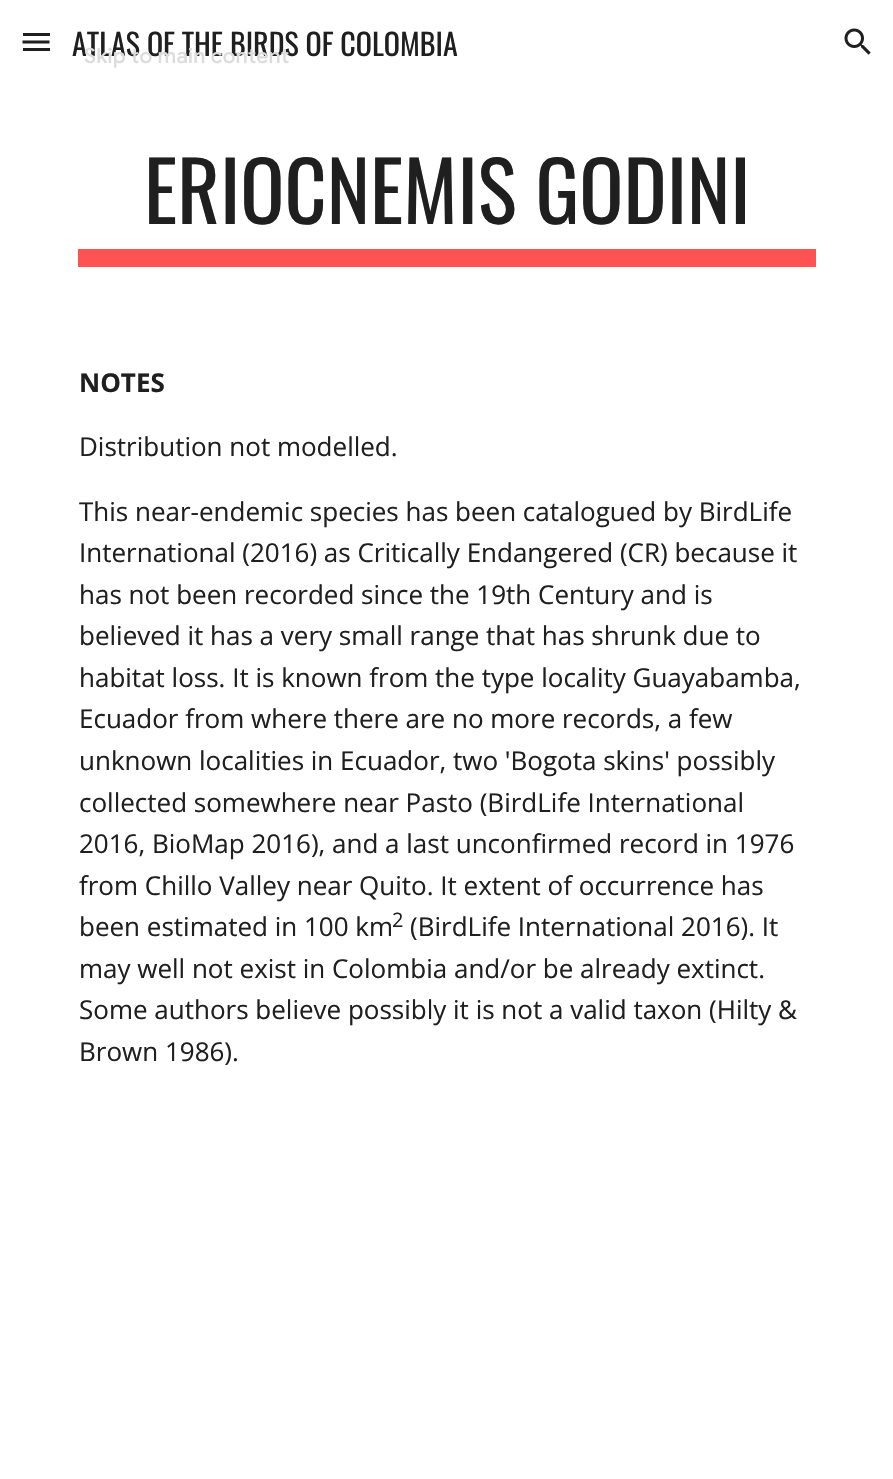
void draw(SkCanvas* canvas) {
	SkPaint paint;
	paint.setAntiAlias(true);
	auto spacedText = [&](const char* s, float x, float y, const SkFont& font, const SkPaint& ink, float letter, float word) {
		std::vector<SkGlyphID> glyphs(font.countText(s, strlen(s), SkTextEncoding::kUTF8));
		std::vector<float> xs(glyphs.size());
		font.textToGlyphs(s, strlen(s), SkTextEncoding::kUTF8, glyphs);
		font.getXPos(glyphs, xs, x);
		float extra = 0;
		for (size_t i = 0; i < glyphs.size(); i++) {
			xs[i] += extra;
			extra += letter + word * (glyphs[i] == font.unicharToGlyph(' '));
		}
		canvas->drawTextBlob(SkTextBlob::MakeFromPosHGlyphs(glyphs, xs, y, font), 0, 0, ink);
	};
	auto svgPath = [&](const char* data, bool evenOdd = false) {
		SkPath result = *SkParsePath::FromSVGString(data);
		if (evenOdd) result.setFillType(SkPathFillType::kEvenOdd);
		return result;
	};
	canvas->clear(0xffffffff);
	paint.setColor(0xff1f1f1f);
	canvas->drawRect(SkRect::MakeXYWH(23, 33, 27, 3), paint);
	paint.setStroke(true);
	paint.setStrokeWidth(3);
	canvas->drawPath(svgPath("M22.5 42H49.5"), paint);
	paint.setStroke(false);
	canvas->drawRect(SkRect::MakeXYWH(23, 48, 27, 3), paint);
	SkFont f1(fontMgr->matchFamilyStyle("Oswald", SkFontStyle::Normal()), 30);
	f1.setSubpixel(true);
	canvas->drawString("ATLAS OF THE BIRDS OF COLOMBIA", 72, 56, f1, paint);
	canvas->drawImageRect(SkImages::DeferredFromEncodedData(SkData::MakeFromFileName("img1.png")), SkRect::MakeXYWH(844, 28, 27, 27), SkSamplingOptions());
	SkFont f2(fontMgr->matchFamilyStyle("Oswald", SkFontStyle::Normal()), 82);
	f2.setSubpixel(true);
	canvas->drawString("ERIOCNEMIS GODINI", 144, 224, f2, paint);
	paint.setColor(0xffff5252);
	canvas->drawRect(SkRect::MakeXYWH(78, 249, 738, 18), paint);
	SkFont f3(fontMgr->matchFamilyStyle("Open Sans", SkFontStyle::Bold()), 26);
	f3.setSubpixel(true);
	paint.setColor(0xff1f1f1f);
	canvas->drawString("NOTES", 79, 392, f3, paint);
	SkFont f4(fontMgr->matchFamilyStyle("Open Sans", SkFontStyle::Normal()), 26);
	f4.setSubpixel(true);
	canvas->drawString("Distribution not modelled.", 79, 456, f4, paint);
	canvas->drawString("This near-endemic species has been catalogued by BirdLife", 79, 521, f4, paint);
	canvas->drawString("International (2016) as Critically Endangered (CR) because it", 79, 562, f4, paint);
	canvas->drawString("has not been recorded since the 19th Century and is", 79, 604, f4, paint);
	canvas->drawString("believed it has a very small range that has shrunk due to", 79, 645, f4, paint);
	canvas->drawString("habitat loss. It is known from the type locality Guayabamba,", 79, 687, f4, paint);
	canvas->drawString("Ecuador from where there are no more records, a few", 79, 728, f4, paint);
	canvas->drawString("unknown localities in Ecuador, two 'Bogota skins' possibly", 79, 770, f4, paint);
	canvas->drawString("collected somewhere near Pasto (BirdLife International", 79, 812, f4, paint);
	canvas->drawString("2016, BioMap 2016), and a last unconfirmed record in 1976", 79, 853, f4, paint);
	canvas->drawString("from Chillo Valley near Quito. It extent of occurrence has", 79, 895, f4, paint);
	canvas->drawString("been estimated in 100 km", 79, 936, f4, paint);
	SkFont f5(fontMgr->matchFamilyStyle("Open Sans", SkFontStyle::Normal()), 20);
	f5.setSubpixel(true);
	canvas->drawString("2", 392, 927, f5, paint);
	canvas->drawString("(BirdLife International 2016). It", 410, 936, f4, paint);
	canvas->drawString("may well not exist in Colombia and/or be already extinct.", 79, 978, f4, paint);
	canvas->drawString("Some authors believe possibly it is not a valid taxon (Hilty &", 79, 1019, f4, paint);
	canvas->drawString("Brown 1986).", 79, 1061, f4, paint);
	SkFont f6(fontMgr->matchFamilyStyle("Google Sans", SkFontStyle(500, SkFontStyle::kNormal_Width, SkFontStyle::kUpright_Slant)), 21);
	f6.setSubpixel(true);
	paint.setColor(0xffdcdcdc);
	spacedText("Skip to main content", 84, 63, f6, paint, 0.25, 0);
}
